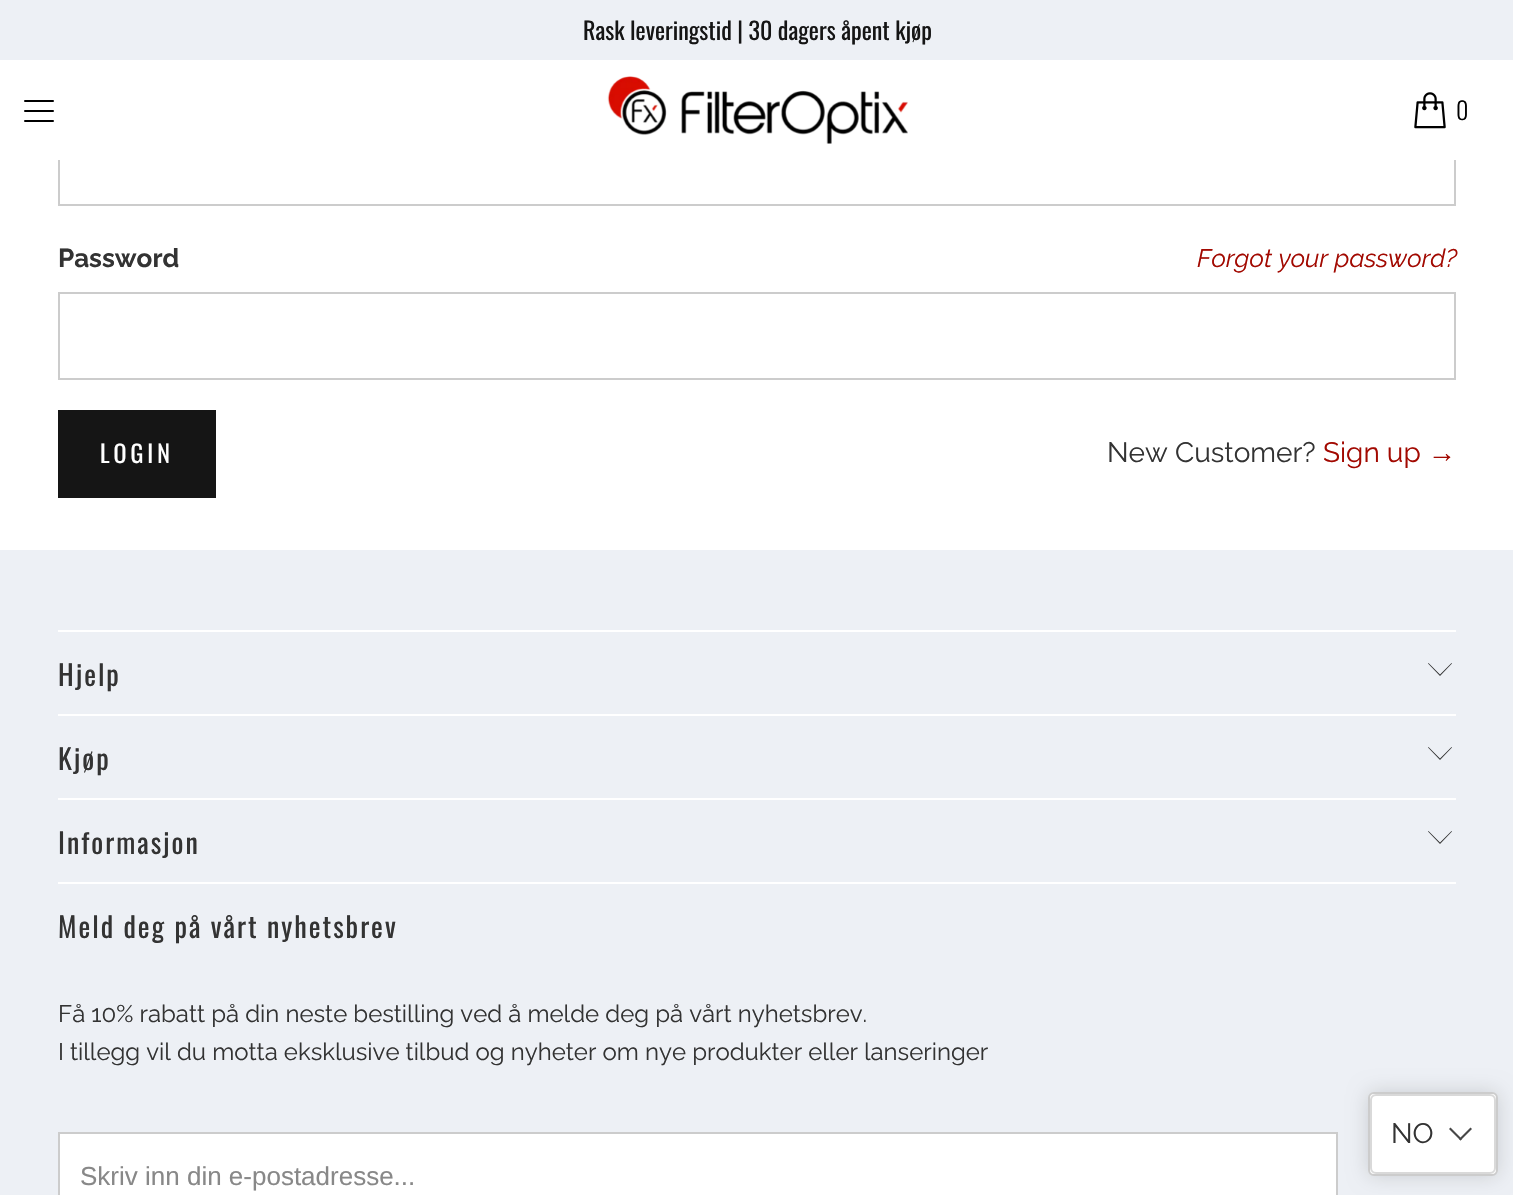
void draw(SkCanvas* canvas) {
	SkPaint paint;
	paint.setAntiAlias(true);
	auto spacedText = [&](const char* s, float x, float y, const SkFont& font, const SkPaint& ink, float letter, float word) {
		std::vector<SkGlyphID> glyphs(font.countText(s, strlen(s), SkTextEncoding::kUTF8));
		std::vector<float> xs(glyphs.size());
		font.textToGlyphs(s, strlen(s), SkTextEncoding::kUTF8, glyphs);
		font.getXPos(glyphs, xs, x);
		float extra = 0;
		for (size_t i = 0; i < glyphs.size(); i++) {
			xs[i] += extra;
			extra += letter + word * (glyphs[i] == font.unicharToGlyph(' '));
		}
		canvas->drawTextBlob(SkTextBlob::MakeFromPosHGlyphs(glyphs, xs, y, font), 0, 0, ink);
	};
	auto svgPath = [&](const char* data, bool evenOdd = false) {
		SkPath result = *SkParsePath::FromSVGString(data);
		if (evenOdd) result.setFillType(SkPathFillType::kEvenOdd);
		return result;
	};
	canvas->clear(0xffffffff);
	paint.setColor(0xffedf0f5);
	canvas->drawRect(SkRect::MakeXYWH(0, 0, 1513, 60), paint);
	SkFont f1(fontMgr->matchFamilyStyle("Oswald", SkFontStyle::Normal()), 24);
	f1.setSubpixel(true);
	paint.setColor(0xff151515);
	canvas->drawString("Rask leveringstid | 30 dagers åpent kjøp", 583, 40, f1, paint);
	paint.setStroke(true);
	paint.setStrokeWidth(2);
	paint.setColor(0xffcccccc);
	canvas->drawRect(SkRect::MakeXYWH(59, 119, 1396, 86), paint);
	paint.setStroke(false);
	paint.setColor(0xffffffff);
	canvas->drawRect(SkRect::MakeXYWH(58, 118, 1398, 42), paint);
	paint.setColor(0xff000000);
	canvas->drawRoundRect(SkRect::MakeXYWH(24, 100, 30, 2), 1, 1, paint);
	canvas->drawRoundRect(SkRect::MakeXYWH(24, 110, 30, 2), 1, 1, paint);
	canvas->drawRoundRect(SkRect::MakeXYWH(24, 120, 30, 2), 1, 1, paint);
	canvas->drawImageRect(SkImages::DeferredFromEncodedData(SkData::MakeFromFileName("img1.png")), SkRect::MakeXYWH(607, 76, 301, 68), SkSamplingOptions());
	canvas->drawImageRect(SkImages::DeferredFromEncodedData(SkData::MakeFromFileName("img2.png")), SkRect::MakeXYWH(1414, 92, 32, 37), SkSamplingOptions());
	SkFont f2(fontMgr->matchFamilyStyle("Oswald", SkFontStyle(300, SkFontStyle::kNormal_Width, SkFontStyle::kUpright_Slant)), 24);
	f2.setSubpixel(true);
	spacedText("0", 1456, 120, f2, paint, 2, 0);
	SkFont f3(fontMgr->matchFamilyStyle("Raleway", SkFontStyle::Bold()), 26);
	f3.setSubpixel(true);
	paint.setColor(0xff333333);
	canvas->drawString("Password", 58, 267, f3, paint);
	SkFont f4(fontMgr->matchFamilyStyle("Raleway", SkFontStyle::Italic()), 25.25);
	f4.setSubpixel(true);
	paint.setColor(0xffa20901);
	canvas->drawString("Forgot your password?", 1197, 267, f4, paint);
	paint.setStroke(true);
	paint.setColor(0xffcccccc);
	canvas->drawRect(SkRect::MakeXYWH(59, 293, 1396, 86), paint);
	paint.setStroke(false);
	paint.setColor(0xff151515);
	canvas->drawRect(SkRect::MakeXYWH(58, 410, 158, 88), paint);
	paint.setColor(0xffffffff);
	spacedText("LOGIN", 100, 463, f1, paint, 4, 0);
	SkFont f5(fontMgr->matchFamilyStyle("Raleway", SkFontStyle::Normal()), 28);
	f5.setSubpixel(true);
	paint.setColor(0xff333333);
	canvas->drawString("New Customer?", 1107, 462, f5, paint);
	paint.setColor(0xffa20901);
	canvas->drawString("Sign up", 1323, 462, f5, paint);
	SkFont f6(fontMgr->matchFamilyStyle("Liberation Sans", SkFontStyle::Normal()), 28);
	f6.setSubpixel(true);
	canvas->drawString("→", 1428, 462, f6, paint);
	paint.setColor(0xffedf0f5);
	canvas->drawRect(SkRect::MakeXYWH(0, 550, 1513, 645), paint);
	paint.setColor(0xffffffff);
	canvas->drawRect(SkRect::MakeXYWH(58, 630, 1398, 2), paint);
	SkFont f7(fontMgr->matchFamilyStyle("Oswald", SkFontStyle::Normal()), 28);
	f7.setSubpixel(true);
	paint.setColor(0xff333333);
	spacedText("Hjelp", 58, 686, f7, paint, 2, 0);
	canvas->drawPath(svgPath("M1440 676L1428 663.5L1428.5 663L1440 674.5L1451.5 663L1452 663.5Z"), paint);
	paint.setColor(0xffffffff);
	canvas->drawRect(SkRect::MakeXYWH(58, 714, 1398, 2), paint);
	paint.setColor(0xff333333);
	spacedText("Kjøp", 58, 770, f7, paint, 2, 0);
	canvas->drawPath(svgPath("M1440 760L1428 747.5L1428.5 747L1440 758.5L1451.5 747L1452 747.5Z"), paint);
	paint.setColor(0xffffffff);
	canvas->drawRect(SkRect::MakeXYWH(58, 798, 1398, 2), paint);
	paint.setColor(0xff333333);
	spacedText("Informasjon", 58, 854, f7, paint, 2, 0);
	canvas->drawPath(svgPath("M1440 844L1428 831.5L1428.5 831L1440 842.5L1451.5 831L1452 831.5Z"), paint);
	paint.setColor(0xffffffff);
	canvas->drawRect(SkRect::MakeXYWH(58, 882, 1398, 2), paint);
	paint.setColor(0xff333333);
	spacedText("Meld deg på vårt nyhetsbrev", 58, 938, f7, paint, 2, 0);
	SkFont f8(fontMgr->matchFamilyStyle("Raleway", SkFontStyle::Normal()), 24);
	f8.setSubpixel(true);
	canvas->drawString("Få 10% rabatt på din neste bestilling ved å melde deg på vårt nyhetsbrev.", 58, 1022, f8, paint);
	canvas->drawString("I tillegg vil du motta eksklusive tilbud og nyheter om nye produkter eller lanseringer", 58, 1060, f8, paint);
	paint.setColor(0xffffffff);
	canvas->drawRect(SkRect::MakeXYWH(59, 1133, 1278, 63), paint);
	paint.setStroke(true);
	paint.setColor(0xffcccccc);
	canvas->drawRect(SkRect::MakeXYWH(59, 1133, 1278, 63), paint);
	SkFont f9(fontMgr->matchFamilyStyle("Liberation Sans", SkFontStyle::Normal()), 26);
	f9.setSubpixel(true);
	paint.setStroke(false);
	paint.setColor(0xff888888);
	canvas->drawString("Skriv inn din e-postadresse...", 80, 1185, f9, paint);
	paint.setColor(0x26000000);
	paint.setMaskFilter(SkMaskFilter::MakeBlur(kNormal_SkBlurStyle, 10));
	canvas->drawRoundRect(SkRect::MakeXYWH(1368, 1092, 130, 84), 6, 6, paint);
	paint.setMaskFilter(nullptr);
	paint.setColor(0xffffffff);
	canvas->drawRoundRect(SkRect::MakeXYWH(1369, 1093, 128, 82), 5, 5, paint);
	paint.setStroke(true);
	paint.setColor(0xffcccccc);
	canvas->drawRoundRect(SkRect::MakeXYWH(1369, 1093, 128, 82), 5, 5, paint);
	paint.setColor(0xffd9d9d9);
	canvas->drawRoundRect(SkRect::MakeXYWH(1371, 1095, 124, 78), 5, 5, paint);
	paint.setStroke(false);
	paint.setColor(0xff333333);
	canvas->drawString("NO", 1391, 1143, f5, paint);
	paint.setColor(0xff474747);
	canvas->drawPath(svgPath("M1470.5 1127.5L1472 1129L1460.5 1140.5L1459 1139Z"), paint);
	canvas->drawPath(svgPath("M1450.5 1127.5L1462 1139L1460.5 1140.5L1449 1129Z"), paint);
}
